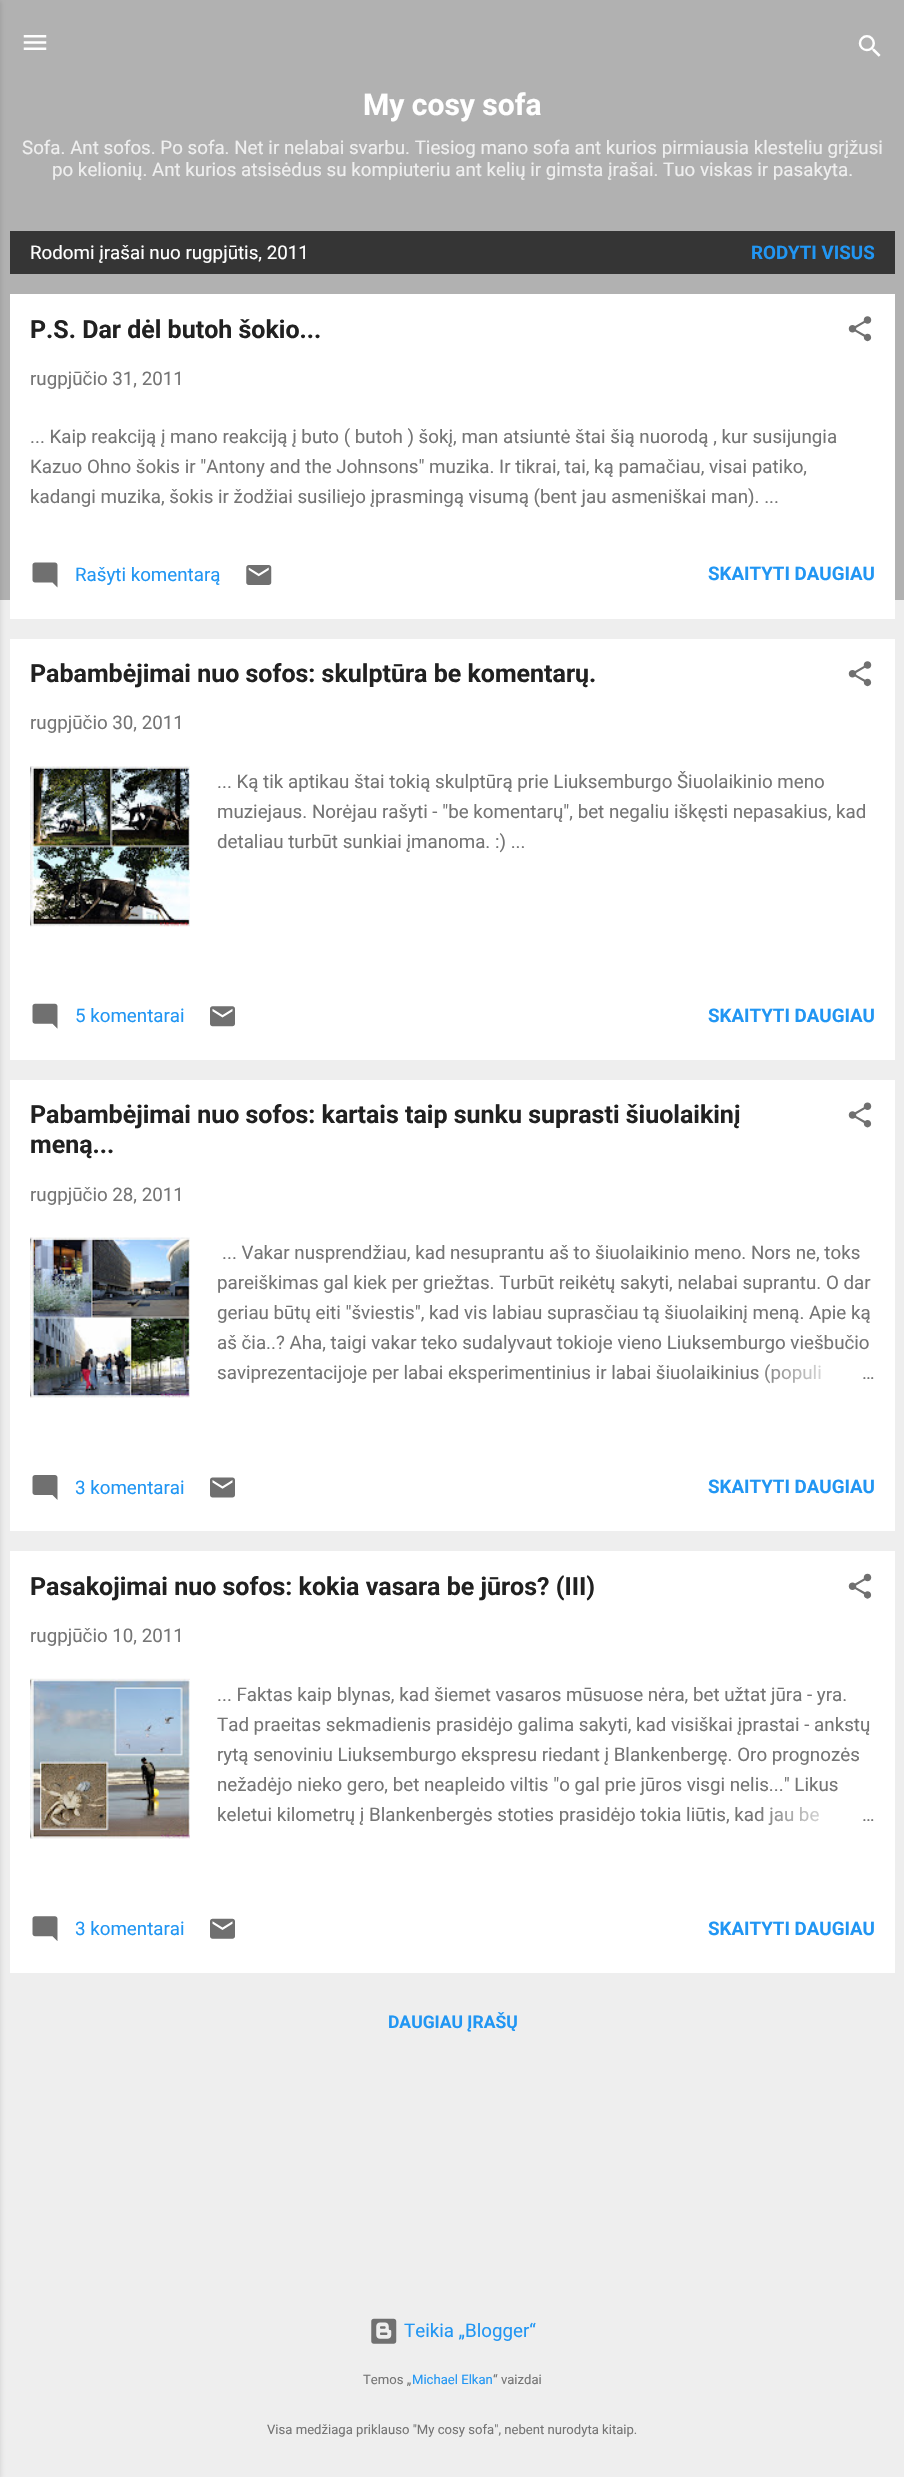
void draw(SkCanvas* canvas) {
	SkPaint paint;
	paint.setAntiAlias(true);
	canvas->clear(0xffeeeeee);
	paint.setColor(0xffb1b1b1);
	canvas->drawRect(SkRect::MakeXYWH(0, 0, 904, 600), paint);
	paint.setColor(0x1a000000);
	paint.setMaskFilter(SkMaskFilter::MakeBlur(kNormal_SkBlurStyle, 2));
	canvas->drawRect(SkRect::MakeXYWH(-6, 1, 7, 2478), paint);
	paint.setMaskFilter(nullptr);
	canvas->drawImageRect(SkImages::DeferredFromEncodedData(SkData::MakeFromFileName("img1.png")), SkRect::MakeXYWH(23, 35, 24, 15), SkSamplingOptions());
	canvas->drawImageRect(SkImages::DeferredFromEncodedData(SkData::MakeFromFileName("img2.png")), SkRect::MakeXYWH(858, 35, 23, 22), SkSamplingOptions());
	SkFont f1(fontMgr->matchFamilyStyle("Roboto", SkFontStyle::Bold()), 30);
	f1.setSubpixel(true);
	paint.setColor(0xffffffff);
	canvas->drawString("My cosy sofa", 363, 115, f1, paint);
	SkFont f2(fontMgr->matchFamilyStyle("Roboto", SkFontStyle::Normal()), 18.75);
	f2.setSubpixel(true);
	paint.setColor(0xffefefef);
	canvas->drawString("Sofa. Ant sofos. Po sofa. Net ir nelabai svarbu. Tiesiog mano sofa ant kurios pirmiausia klesteliu grįžusi", 22, 154, f2, paint);
	canvas->drawString("po kelionių. Ant kurios atsisėdus su kompiuteriu ant kelių ir gimsta įrašai. Tuo viskas ir pasakyta.", 52, 176, f2, paint);
	paint.setColor(0xff353535);
	canvas->drawRect(SkRect::MakeXYWH(10, 231, 885, 43), paint);
	paint.setColor(0xffffffff);
	canvas->drawString("Rodomi įrašai nuo rugpjūtis, 2011", 30, 259, f2, paint);
	SkFont f3(fontMgr->matchFamilyStyle("Roboto", SkFontStyle::Bold()), 18.75);
	f3.setSubpixel(true);
	paint.setColor(0xff2196f3);
	canvas->drawString("RODYTI VISUS", 751, 259, f3, paint);
	paint.setColor(0xffffffff);
	canvas->drawRect(SkRect::MakeXYWH(10, 294, 885, 325), paint);
	SkFont f4(fontMgr->matchFamilyStyle("Roboto", SkFontStyle::Bold()), 25);
	f4.setSubpixel(true);
	paint.setColor(0xff212121);
	canvas->drawString("P.S. Dar dėl butoh šokio...", 30, 338, f4, paint);
	canvas->drawImageRect(SkImages::DeferredFromEncodedData(SkData::MakeFromFileName("img3.png")), SkRect::MakeXYWH(848, 316, 24, 26), SkSamplingOptions());
	paint.setColor(0xff757575);
	canvas->drawString("rugpjūčio 31, 2011", 30, 385, f2, paint);
	canvas->drawString("... Kaip reakciją į mano reakciją į buto ( butoh ) šokį, man atsiuntė štai šią nuorodą , kur susijungia", 30, 443, f2, paint);
	canvas->drawString("Kazuo Ohno šokis ir \"Antony and the Johnsons\" muzika. Ir tikrai, tai, ką pamačiau, visai patiko,", 30, 473, f2, paint);
	canvas->drawString("kadangi muzika, šokis ir žodžiai susiliejo įprasmingą visumą (bent jau asmeniškai man). ...", 30, 503, f2, paint);
	canvas->drawImageRect(SkImages::DeferredFromEncodedData(SkData::MakeFromFileName("img4.png")), SkRect::MakeXYWH(32, 562, 26, 26), SkSamplingOptions());
	paint.setColor(0xff2196f3);
	canvas->drawString("Rašyti komentarą", 75, 581, f2, paint);
	canvas->drawImageRect(SkImages::DeferredFromEncodedData(SkData::MakeFromFileName("img5.png")), SkRect::MakeXYWH(246, 565, 26, 20), SkSamplingOptions());
	canvas->drawString("SKAITYTI DAUGIAU", 708, 580, f3, paint);
	paint.setColor(0xffffffff);
	canvas->drawRect(SkRect::MakeXYWH(10, 639, 885, 421), paint);
	paint.setColor(0xff212121);
	canvas->drawString("Pabambėjimai nuo sofos: skulptūra be komentarų.", 30, 682, f4, paint);
	canvas->drawImageRect(SkImages::DeferredFromEncodedData(SkData::MakeFromFileName("img3.png")), SkRect::MakeXYWH(848, 661, 24, 26), SkSamplingOptions());
	paint.setColor(0xff757575);
	canvas->drawString("rugpjūčio 30, 2011", 30, 729, f2, paint);
	canvas->drawImageRect(SkImages::DeferredFromEncodedData(SkData::MakeFromFileName("img6.png")), SkRect::MakeXYWH(30, 766, 160, 161), SkSamplingOptions());
	canvas->drawString("... Ką tik aptikau štai tokią skulptūrą prie Liuksemburgo Šiuolaikinio meno", 217, 788, f2, paint);
	canvas->drawString("muziejaus. Norėjau rašyti - \"be komentarų\", bet negaliu iškęsti nepasakius, kad", 217, 818, f2, paint);
	canvas->drawString("detaliau turbūt sunkiai įmanoma. :) ...", 217, 848, f2, paint);
	canvas->drawImageRect(SkImages::DeferredFromEncodedData(SkData::MakeFromFileName("img7.png")), SkRect::MakeXYWH(32, 1003, 26, 26), SkSamplingOptions());
	paint.setColor(0xff2196f3);
	canvas->drawString("5 komentarai", 75, 1022, f2, paint);
	canvas->drawImageRect(SkImages::DeferredFromEncodedData(SkData::MakeFromFileName("img8.png")), SkRect::MakeXYWH(210, 1006, 25, 21), SkSamplingOptions());
	canvas->drawString("SKAITYTI DAUGIAU", 708, 1022, f3, paint);
	paint.setColor(0xffffffff);
	canvas->drawRect(SkRect::MakeXYWH(10, 1080, 885, 451), paint);
	paint.setColor(0xff212121);
	canvas->drawString("Pabambėjimai nuo sofos: kartais taip sunku suprasti šiuolaikinį", 30, 1123, f4, paint);
	canvas->drawString("meną...", 30, 1153, f4, paint);
	canvas->drawImageRect(SkImages::DeferredFromEncodedData(SkData::MakeFromFileName("img9.png")), SkRect::MakeXYWH(848, 1102, 24, 26), SkSamplingOptions());
	paint.setColor(0xff757575);
	canvas->drawString("rugpjūčio 28, 2011", 30, 1201, f2, paint);
	canvas->drawImageRect(SkImages::DeferredFromEncodedData(SkData::MakeFromFileName("img10.png")), SkRect::MakeXYWH(30, 1237, 160, 161), SkSamplingOptions());
	canvas->drawString("... Vakar nusprendžiau, kad nesuprantu aš to šiuolaikinio meno. Nors ne, toks", 222, 1259, f2, paint);
	canvas->drawString("pareiškimas gal kiek per griežtas. Turbūt reikėtų sakyti, nelabai suprantu. O dar", 217, 1289, f2, paint);
	canvas->drawString("geriau būtų eiti \"šviestis\", kad vis labiau suprasčiau tą šiuolaikinį meną. Apie ką", 217, 1319, f2, paint);
	canvas->drawString("aš čia..? Aha, taigi vakar teko sudalyvaut tokioje vieno Liuksemburgo viešbučio", 217, 1349, f2, paint);
	canvas->drawString("saviprezentacijoje per labai eksperimentinius ir labai šiuolaikinius (populi", 217, 1379, f2, paint);
	{
		const SkColor colors[] = {0xffffffff, 0xffffffff, 0x00ffffff};
		const float stops[] = {0, 0.2, 1};
		const SkPoint ends[] = {{875, 1373}, {755, 1373}};
		paint.setShader(SkGradientShader::MakeLinear(ends, colors, stops, 3, SkTileMode::kClamp));
		paint.setAlpha(255);
	}
	canvas->drawRect(SkRect::MakeXYWH(757, 1364, 64, 19), paint);
	paint.setShader(nullptr);
	paint.setColor(0xff757575);
	canvas->drawString("…", 862, 1379, f2, paint);
	canvas->drawImageRect(SkImages::DeferredFromEncodedData(SkData::MakeFromFileName("img11.png")), SkRect::MakeXYWH(32, 1475, 26, 25), SkSamplingOptions());
	paint.setColor(0xff2196f3);
	canvas->drawString("3 komentarai", 75, 1494, f2, paint);
	canvas->drawImageRect(SkImages::DeferredFromEncodedData(SkData::MakeFromFileName("img12.png")), SkRect::MakeXYWH(210, 1477, 25, 21), SkSamplingOptions());
	canvas->drawString("SKAITYTI DAUGIAU", 708, 1493, f3, paint);
	paint.setColor(0xffffffff);
	canvas->drawRect(SkRect::MakeXYWH(10, 1551, 885, 422), paint);
	paint.setColor(0xff212121);
	canvas->drawString("Pasakojimai nuo sofos: kokia vasara be jūros? (III)", 30, 1595, f4, paint);
	canvas->drawImageRect(SkImages::DeferredFromEncodedData(SkData::MakeFromFileName("img13.png")), SkRect::MakeXYWH(848, 1573, 24, 26), SkSamplingOptions());
	paint.setColor(0xff757575);
	canvas->drawString("rugpjūčio 10, 2011", 30, 1642, f2, paint);
	canvas->drawImageRect(SkImages::DeferredFromEncodedData(SkData::MakeFromFileName("img14.png")), SkRect::MakeXYWH(30, 1678, 160, 161), SkSamplingOptions());
	canvas->drawString("... Faktas kaip blynas, kad šiemet vasaros mūsuose nėra, bet užtat jūra - yra.", 217, 1701, f2, paint);
	canvas->drawString("Tad praeitas sekmadienis prasidėjo galima sakyti, kad visiškai įprastai - ankstų", 217, 1731, f2, paint);
	canvas->drawString("rytą senoviniu Liuksemburgo ekspresu riedant į Blankenbergę. Oro prognozės", 217, 1761, f2, paint);
	canvas->drawString("nežadėjo nieko gero, bet neapleido viltis \"o gal prie jūros visgi nelis...\" Likus", 217, 1791, f2, paint);
	canvas->drawString("keletui kilometrų į Blankenbergės stoties prasidėjo tokia liūtis, kad jau be", 217, 1821, f2, paint);
	{
		const SkColor colors[] = {0xffffffff, 0xffffffff, 0x00ffffff};
		const float stops[] = {0, 0.2, 1};
		const SkPoint ends[] = {{875, 1814}, {755, 1814}};
		paint.setShader(SkGradientShader::MakeLinear(ends, colors, stops, 3, SkTileMode::kClamp));
		paint.setAlpha(255);
	}
	canvas->drawRect(SkRect::MakeXYWH(757, 1806, 62, 19), paint);
	paint.setShader(nullptr);
	paint.setColor(0xff757575);
	canvas->drawString("…", 862, 1821, f2, paint);
	canvas->drawImageRect(SkImages::DeferredFromEncodedData(SkData::MakeFromFileName("img15.png")), SkRect::MakeXYWH(32, 1916, 26, 25), SkSamplingOptions());
	paint.setColor(0xff2196f3);
	canvas->drawString("3 komentarai", 75, 1935, f2, paint);
	canvas->drawImageRect(SkImages::DeferredFromEncodedData(SkData::MakeFromFileName("img16.png")), SkRect::MakeXYWH(210, 1918, 25, 21), SkSamplingOptions());
	canvas->drawString("SKAITYTI DAUGIAU", 708, 1935, f3, paint);
	SkFont f5(fontMgr->matchFamilyStyle("Roboto", SkFontStyle::Bold()), 17.5);
	f5.setSubpixel(true);
	canvas->drawString("DAUGIAU ĮRAŠŲ", 388, 2028, f5, paint);
	canvas->drawImageRect(SkImages::DeferredFromEncodedData(SkData::MakeFromFileName("img17.png")), SkRect::MakeXYWH(371, 2318, 26, 26), SkSamplingOptions());
	canvas->drawString("Teikia „Blogger“", 404, 2337, f2, paint);
	SkFont f6(fontMgr->matchFamilyStyle("Roboto", SkFontStyle::Normal()), 13.1);
	f6.setSubpixel(true);
	paint.setColor(0xff757575);
	canvas->drawString("Temos „", 363, 2384, f6, paint);
	paint.setColor(0xff2196f3);
	canvas->drawString("Michael Elkan", 412, 2384, f6, paint);
	paint.setColor(0xff757575);
	canvas->drawString("“ vaizdai", 493, 2384, f6, paint);
	canvas->drawString("Visa medžiaga priklauso \"My cosy sofa\", nebent nurodyta kitaip.", 267, 2434, f6, paint);
}
